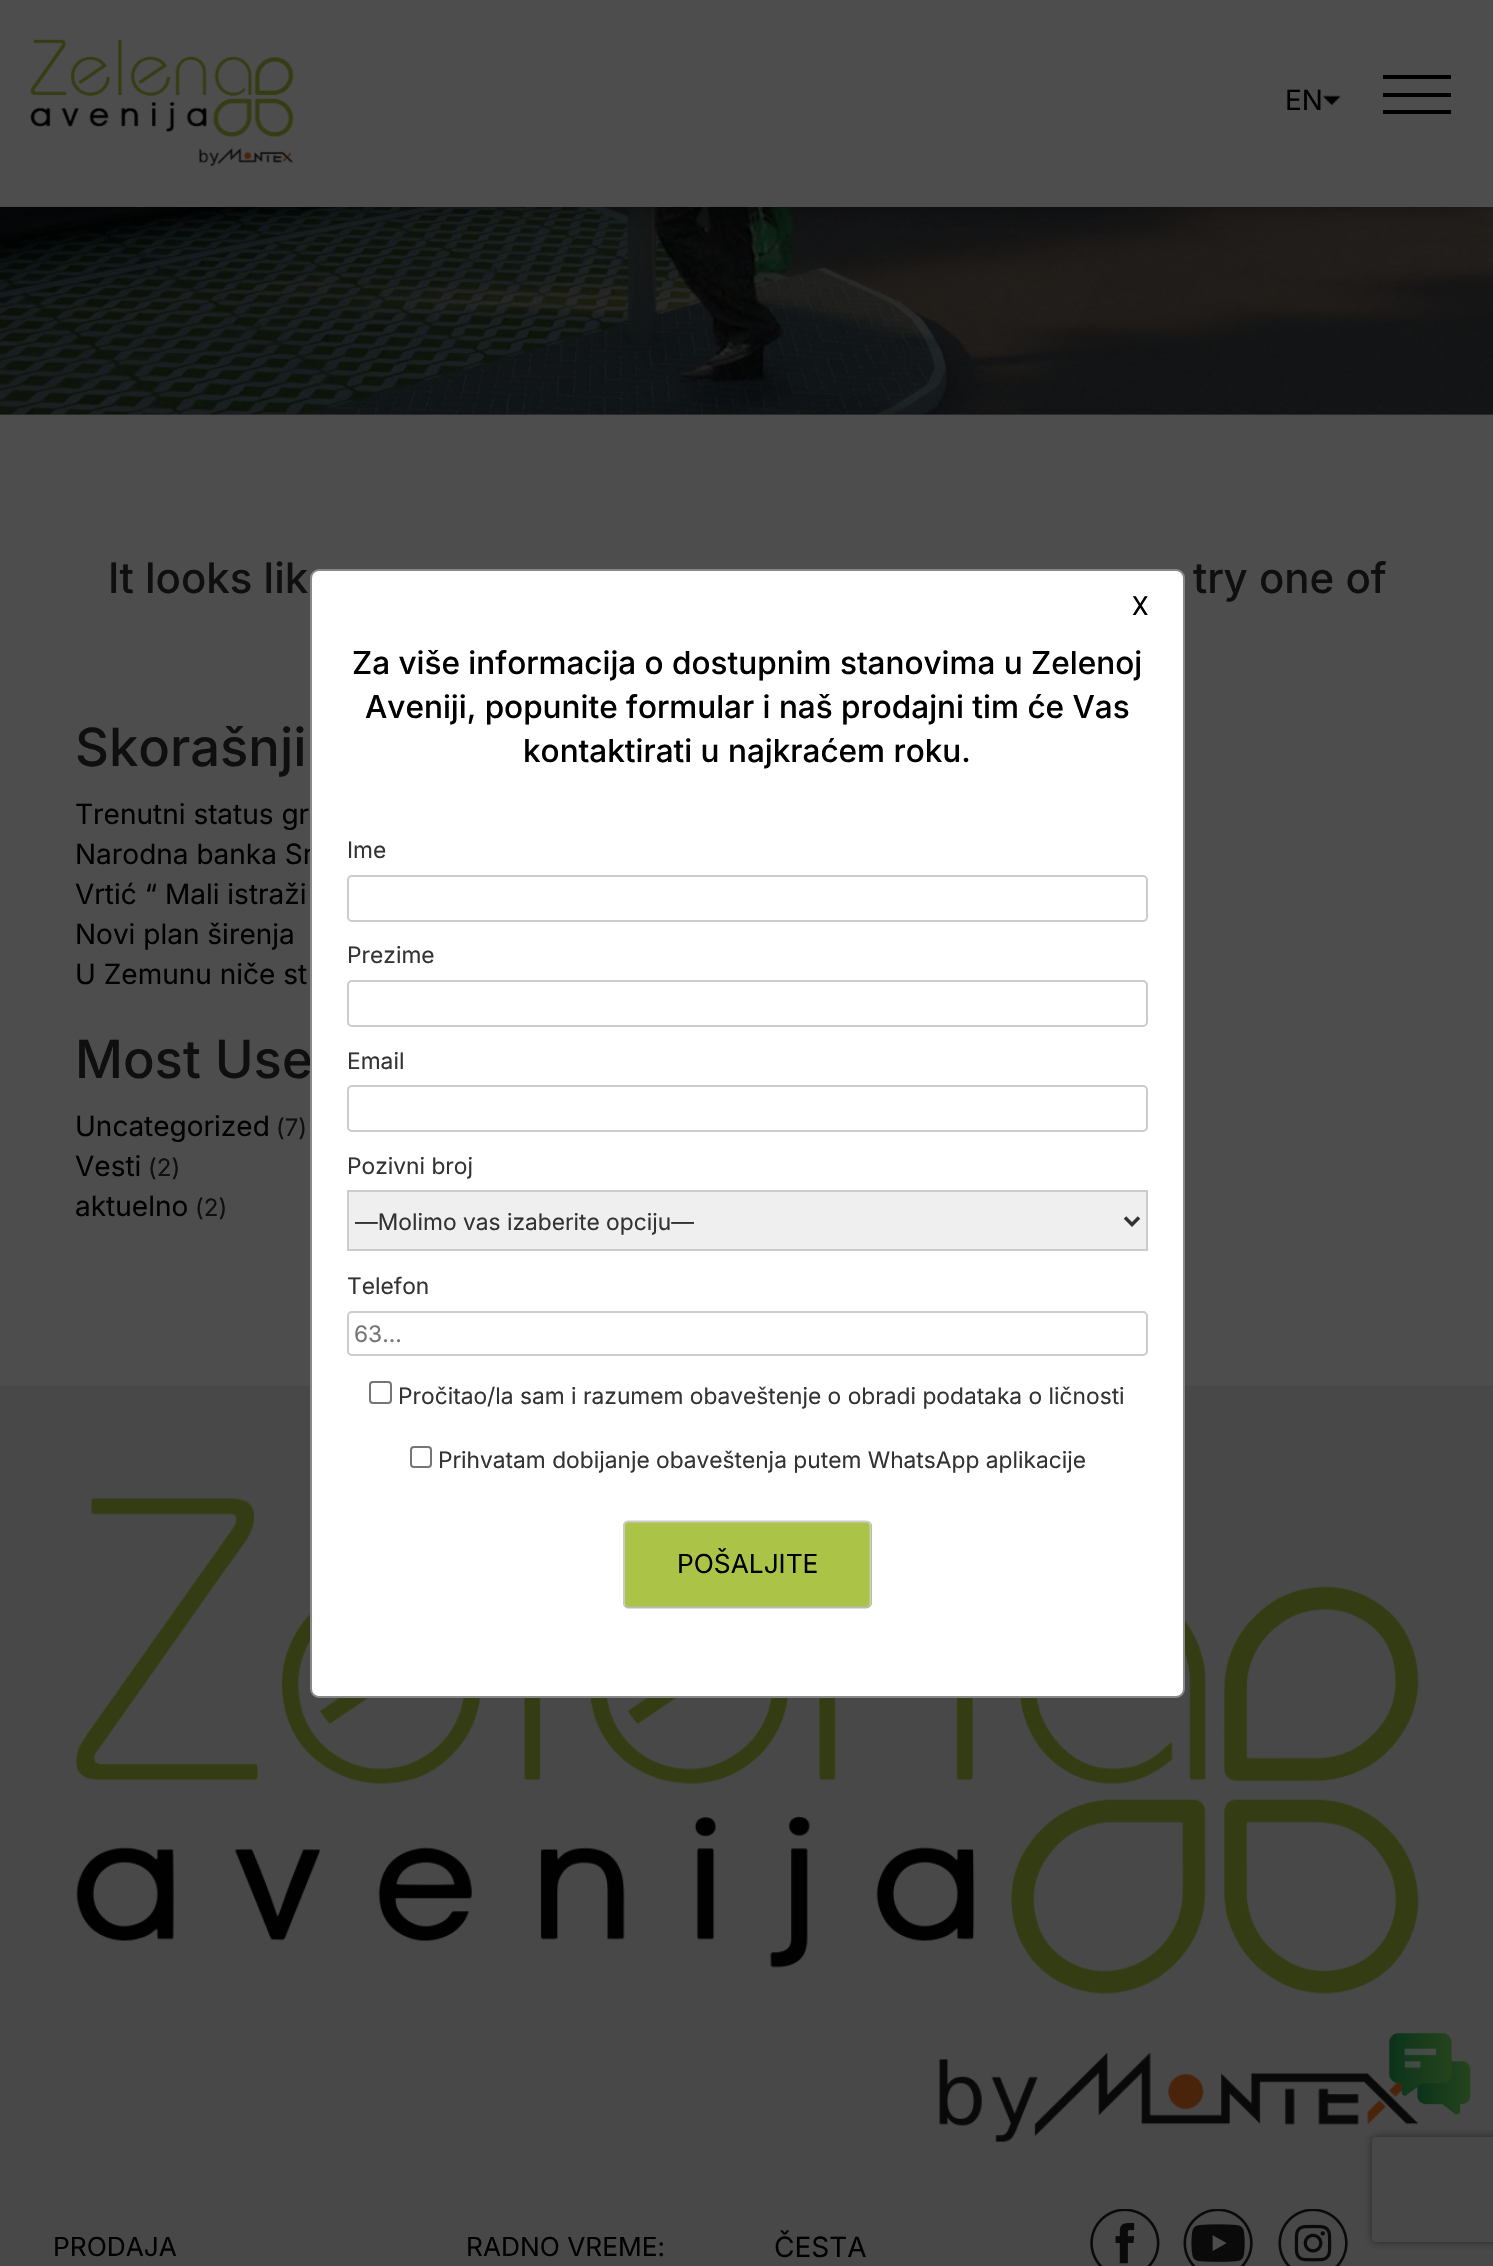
void draw(SkCanvas* canvas) {
	SkPaint paint;
	paint.setAntiAlias(true);
	auto svgPath = [&](const char* data, bool evenOdd = false) {
		SkPath result = *SkParsePath::FromSVGString(data);
		if (evenOdd) result.setFillType(SkPathFillType::kEvenOdd);
		return result;
	};
	canvas->clear(0xff4d4d4d);
	paint.setColor(0xff303030);
	canvas->drawRect(SkRect::MakeXYWH(0, 414, 1493, 1), paint);
	canvas->drawImageRect(SkImages::DeferredFromEncodedData(SkData::MakeFromFileName("img3.png")), SkRect::MakeXYWH(0, 207, 1493, 208), SkSamplingOptions());
	paint.setColor(0xd6000000);
	paint.setMaskFilter(SkMaskFilter::MakeBlur(kNormal_SkBlurStyle, 16.5));
	canvas->drawRect(SkRect::MakeXYWH(11, 11, 1473, 185), paint);
	paint.setMaskFilter(nullptr);
	paint.setColor(0xff4d4d4d);
	canvas->drawRect(SkRect::MakeXYWH(0, 0, 1493, 207), paint);
	canvas->drawImageRect(SkImages::DeferredFromEncodedData(SkData::MakeFromFileName("img1.png")), SkRect::MakeXYWH(30, 39, 264, 127), SkSamplingOptions());
	SkFont f1(fontMgr->matchFamilyStyle("Inter", SkFontStyle::Normal()), 28);
	f1.setSubpixel(true);
	paint.setColor(0xff000000);
	canvas->drawString("EN", 1285, 110, f1, paint);
	canvas->drawImageRect(SkImages::DeferredFromEncodedData(SkData::MakeFromFileName("img2.png")), SkRect::MakeXYWH(1322, 95, 19, 11), SkSamplingOptions());
	canvas->drawRect(SkRect::MakeXYWH(1383, 75, 68, 4), paint);
	canvas->drawRect(SkRect::MakeXYWH(1383, 93, 68, 4), paint);
	canvas->drawRect(SkRect::MakeXYWH(1383, 110, 68, 4), paint);
	SkFont f2(fontMgr->matchFamilyStyle("Inter", SkFontStyle(500, SkFontStyle::kNormal_Width, SkFontStyle::kUpright_Slant)), 42);
	f2.setSubpixel(true);
	paint.setColor(0xff0f0f0f);
	canvas->drawString("It looks lik", 108, 593, f2, paint);
	canvas->drawString("try one of", 1193, 593, f2, paint);
	SkFont f3(fontMgr->matchFamilyStyle("Inter", SkFontStyle(500, SkFontStyle::kNormal_Width, SkFontStyle::kUpright_Slant)), 52.5);
	f3.setSubpixel(true);
	canvas->drawString("Skorašnji", 75, 766, f3, paint);
	paint.setColor(0xff000000);
	canvas->drawString("Trenutni status gr", 75, 824, f1, paint);
	canvas->drawString("Narodna banka Sr", 75, 864, f1, paint);
	canvas->drawString("Vrtić “ Mali istraži", 75, 904, f1, paint);
	canvas->drawString("Novi plan širenja", 75, 944, f1, paint);
	canvas->drawString("U Zemunu niče st", 75, 984, f1, paint);
	paint.setColor(0xff0f0f0f);
	canvas->drawString("Most Use", 75, 1078, f3, paint);
	paint.setColor(0xff000000);
	canvas->drawString("Uncategorized", 75, 1136, f1, paint);
	SkFont f4(fontMgr->matchFamilyStyle("Inter", SkFontStyle::Normal()), 24);
	f4.setSubpixel(true);
	paint.setColor(0xff0f0f0f);
	canvas->drawString("(7)", 276, 1136, f4, paint);
	paint.setColor(0xff000000);
	canvas->drawString("Vesti", 75, 1176, f1, paint);
	paint.setColor(0xff0f0f0f);
	canvas->drawString("(2)", 148, 1176, f4, paint);
	paint.setColor(0xff000000);
	canvas->drawString("aktuelno", 75, 1216, f1, paint);
	paint.setColor(0xff0f0f0f);
	canvas->drawString("(2)", 195, 1216, f4, paint);
	paint.setColor(0xff484848);
	canvas->drawRect(SkRect::MakeXYWH(0, 1386, 1493, 880), paint);
	canvas->drawImageRect(SkImages::DeferredFromEncodedData(SkData::MakeFromFileName("img4.png")), SkRect::MakeXYWH(76, 1497, 1343, 645), SkSamplingOptions());
	paint.setColor(0xffffffff);
	canvas->drawRoundRect(SkRect::MakeXYWH(311, 570, 873, 1127), 8, 8, paint);
	paint.setStroke(true);
	paint.setStrokeWidth(2);
	paint.setColor(0xff888888);
	canvas->drawRoundRect(SkRect::MakeXYWH(311, 570, 873, 1127), 8, 8, paint);
	paint.setStroke(false);
	paint.setColor(0xffffffff);
	canvas->drawRoundRect(SkRect::MakeXYWH(1097, 571, 86, 73), 9, 9, paint);
	SkFont f5(fontMgr->matchFamilyStyle("Roboto", SkFontStyle::Normal()), 26.25);
	f5.setSubpixel(true);
	paint.setColor(0xff000000);
	canvas->drawString("X", 1132, 615, f5, paint);
	SkFont f6(fontMgr->matchFamilyStyle("Inter", SkFontStyle(500, SkFontStyle::kNormal_Width, SkFontStyle::kUpright_Slant)), 31.5);
	f6.setSubpixel(true);
	canvas->drawString("Za više informacija o dostupnim stanovima u Zelenoj", 352, 674, f6, paint);
	canvas->drawString("Aveniji, popunite formular i naš prodajni tim će Vas", 365, 718, f6, paint);
	canvas->drawString("kontaktirati u najkraćem roku.", 523, 762, f6, paint);
	SkFont f7(fontMgr->matchFamilyStyle("Inter", SkFontStyle::Normal()), 22.75);
	f7.setSubpixel(true);
	paint.setColor(0xff333333);
	canvas->drawString("Ime", 347, 858, f7, paint);
	paint.setStroke(true);
	paint.setColor(0xffcccccc);
	canvas->drawRoundRect(SkRect::MakeXYWH(348, 876, 799, 45), 4, 4, paint);
	paint.setStroke(false);
	paint.setColor(0xff333333);
	canvas->drawString("Prezime", 347, 963, f7, paint);
	paint.setStroke(true);
	paint.setColor(0xffcccccc);
	canvas->drawRoundRect(SkRect::MakeXYWH(348, 981, 799, 45), 4, 4, paint);
	paint.setStroke(false);
	paint.setColor(0xff333333);
	canvas->drawString("Email", 347, 1069, f7, paint);
	paint.setStroke(true);
	paint.setColor(0xffcccccc);
	canvas->drawRoundRect(SkRect::MakeXYWH(348, 1086, 799, 45), 4, 4, paint);
	paint.setStroke(false);
	paint.setColor(0xff333333);
	canvas->drawString("Pozivni broj", 347, 1174, f7, paint);
	paint.setColor(0xffefefef);
	canvas->drawRect(SkRect::MakeXYWH(348, 1191, 799, 59), paint);
	paint.setStroke(true);
	paint.setColor(0xffcccccc);
	canvas->drawRect(SkRect::MakeXYWH(348, 1191, 799, 59), paint);
	paint.setStrokeWidth(3.5);
	paint.setColor(0xff333333);
	canvas->drawPath(svgPath("M1125 1217.5L1132 1224.5L1139 1217.5"), paint);
	paint.setStroke(false);
	canvas->drawString("—Molimo vas izaberite opciju—", 355, 1230, f7, paint);
	canvas->drawString("Telefon", 347, 1294, f7, paint);
	paint.setStroke(true);
	paint.setStrokeWidth(2);
	paint.setColor(0xffcccccc);
	canvas->drawRoundRect(SkRect::MakeXYWH(348, 1312, 799, 43), 4, 4, paint);
	paint.setStroke(false);
	paint.setColor(0xff757575);
	canvas->drawString("63...", 354, 1342, f7, paint);
	paint.setStroke(true);
	paint.setColor(0xff767676);
	canvas->drawRoundRect(SkRect::MakeXYWH(370, 1382, 21, 21), 3, 3, paint);
	paint.setStroke(false);
	paint.setColor(0xff333333);
	canvas->drawString("Pročitao/la sam i razumem obaveštenje o obradi podataka o ličnosti", 398, 1404, f7, paint);
	paint.setStroke(true);
	paint.setColor(0xff767676);
	canvas->drawRoundRect(SkRect::MakeXYWH(411, 1447, 20, 20), 3, 3, paint);
	paint.setStroke(false);
	paint.setColor(0xff333333);
	canvas->drawString("Prihvatam dobijanje obaveštenja putem WhatsApp aplikacije", 438, 1468, f7, paint);
	paint.setColor(0xffabc447);
	canvas->drawRoundRect(SkRect::MakeXYWH(623, 1521, 249, 87), 5, 5, paint);
	paint.setStroke(true);
	paint.setStrokeWidth(1.8);
	paint.setColor(0xffbbbbbb);
	canvas->drawPath(svgPath("M869.5 1606C868.5 1607 867.5 1607.5 866 1607.5H628C627 1607.5 626 1607 625 1606"), paint);
	paint.setColor(0xffcccccc);
	canvas->drawPath(svgPath("M625 1606C624.5 1605.5 624 1604 624 1603V1526C624 1525 624.5 1523.5 625 1523C626 1522 627 1521.5 628 1521.5H866C867.5 1521.5 868.5 1522 869.5 1523C870 1523.5 870.5 1525 870.5 1526V1603C870.5 1604 870 1605.5 869.5 1606"), paint);
	SkFont f8(fontMgr->matchFamilyStyle("Inter", SkFontStyle::Normal()), 26.25);
	f8.setSubpixel(true);
	paint.setStroke(false);
	paint.setColor(0xff000000);
	canvas->drawString("POŠALJITE", 677, 1573, f8, paint);
	canvas->drawString("PRODAJA", 53, 2256, f8, paint);
	canvas->drawString("RADNO VREME:", 466, 2256, f8, paint);
	canvas->drawString("ČESTA", 774, 2257, f1, paint);
	canvas->drawImageRect(SkImages::DeferredFromEncodedData(SkData::MakeFromFileName("img5.png")), SkRect::MakeXYWH(1090, 2209, 70, 57), SkSamplingOptions());
	canvas->drawImageRect(SkImages::DeferredFromEncodedData(SkData::MakeFromFileName("img6.png")), SkRect::MakeXYWH(1183, 2209, 70, 57), SkSamplingOptions());
	canvas->drawImageRect(SkImages::DeferredFromEncodedData(SkData::MakeFromFileName("img7.png")), SkRect::MakeXYWH(1278, 2209, 70, 57), SkSamplingOptions());
	canvas->drawImageRect(SkImages::DeferredFromEncodedData(SkData::MakeFromFileName("img8.png")), SkRect::MakeXYWH(1388, 2032, 83, 83), SkSamplingOptions());
	canvas->save();
	canvas->clipPath(svgPath("M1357 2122H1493V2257H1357ZM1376 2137H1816C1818 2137 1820 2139 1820 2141V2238C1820 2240 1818 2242 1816 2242H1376C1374 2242 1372 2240 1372 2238V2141C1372 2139 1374 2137 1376 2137Z", true), true);
	paint.setColor(0xff262626);
	paint.setMaskFilter(SkMaskFilter::MakeBlur(kNormal_SkBlurStyle, 4.5));
	canvas->drawRoundRect(SkRect::MakeXYWH(1372, 2137, 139, 105), 4, 4, paint);
	paint.setMaskFilter(nullptr);
	canvas->restore();
}
